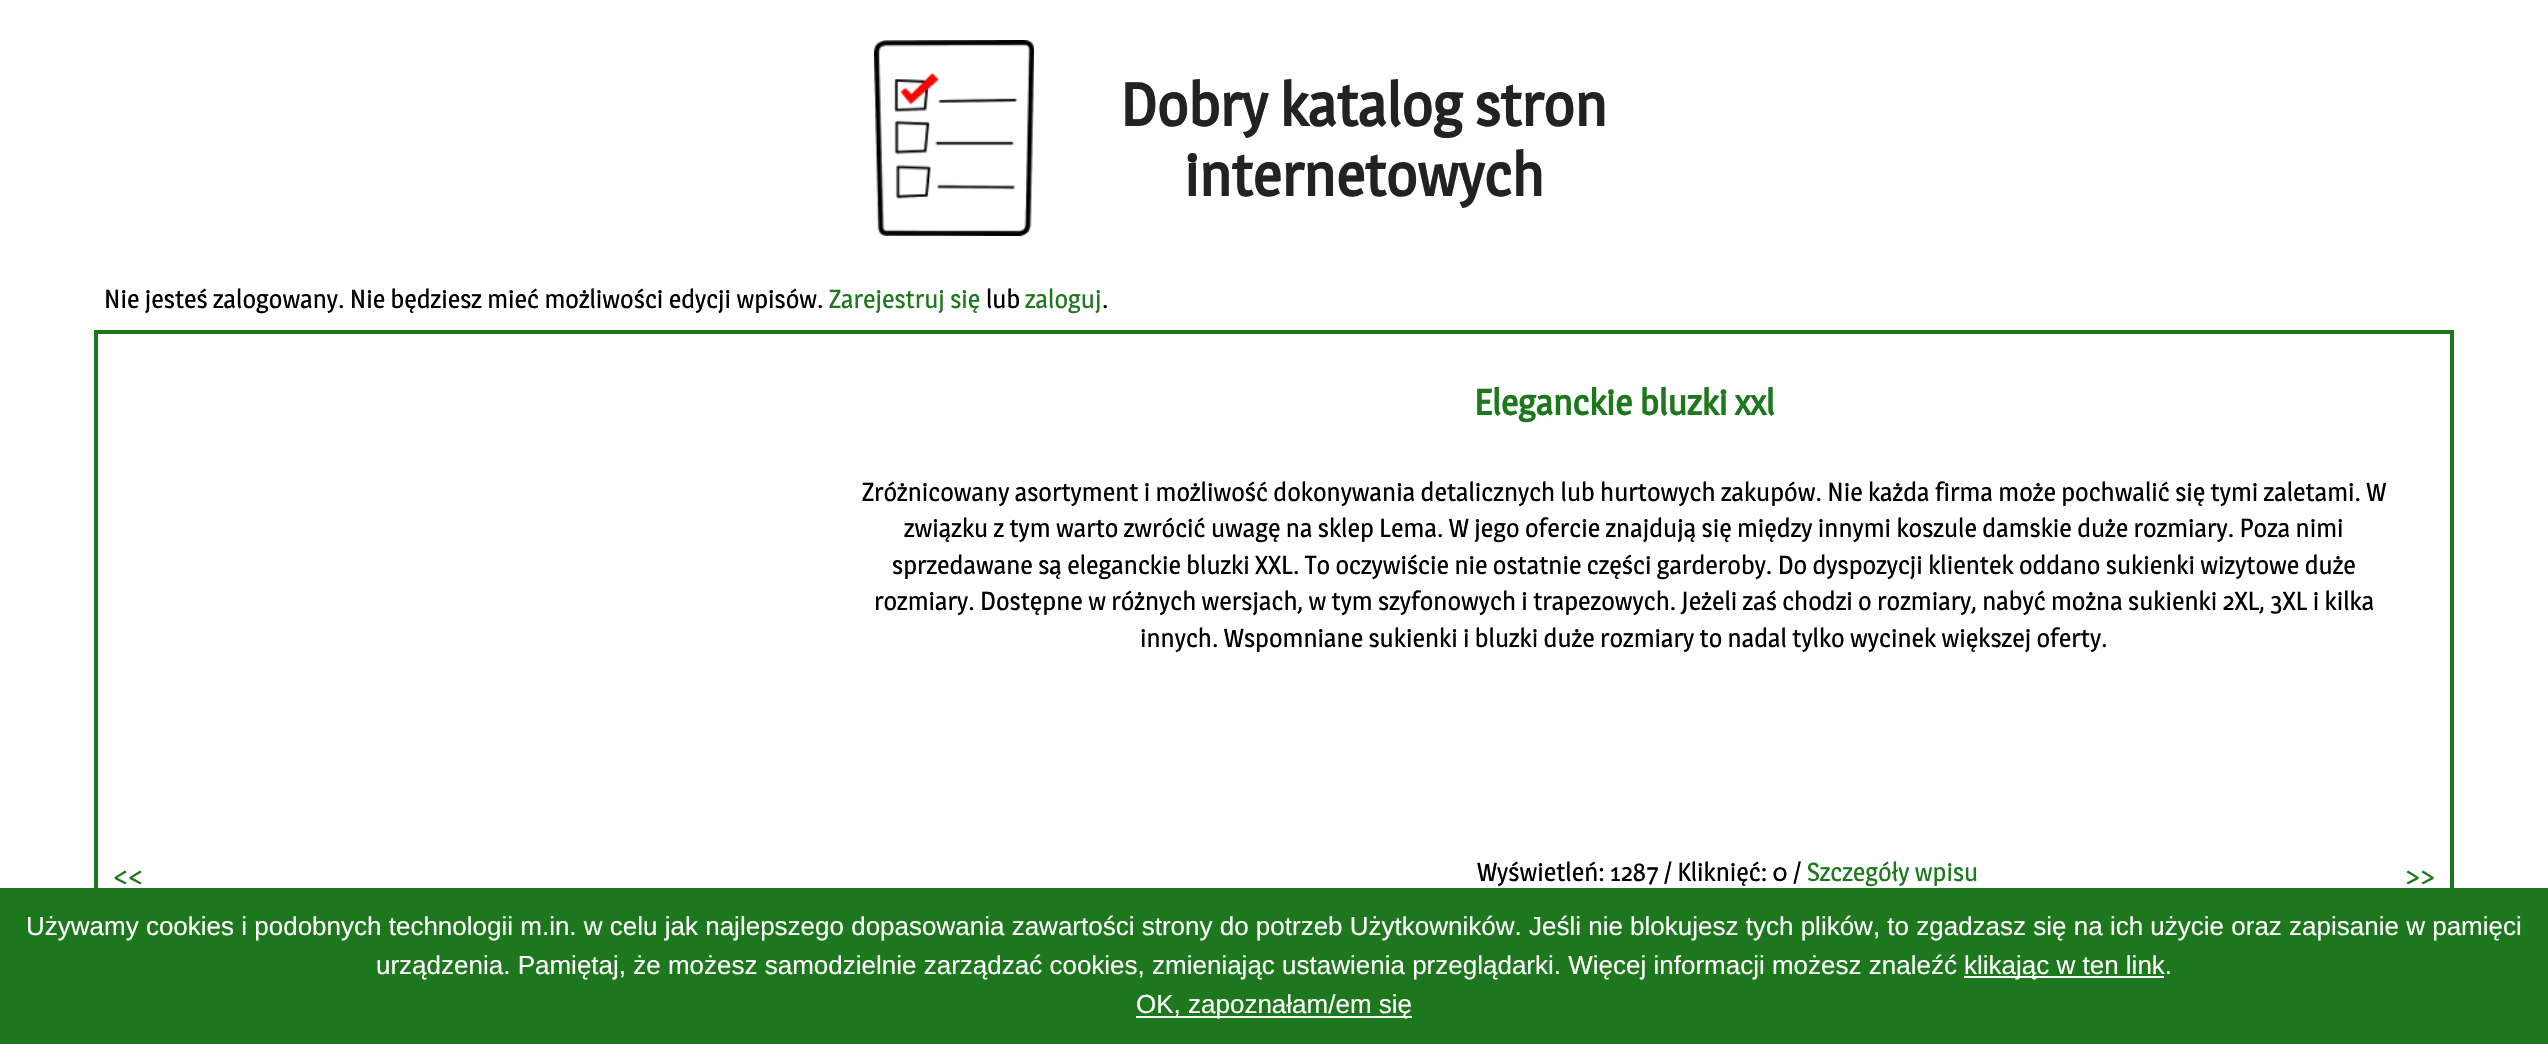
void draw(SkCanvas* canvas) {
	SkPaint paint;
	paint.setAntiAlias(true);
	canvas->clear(0xffffffff);
	canvas->drawImageRect(SkImages::DeferredFromEncodedData(SkData::MakeFromFileName("img1.png")), SkRect::MakeXYWH(874, 40, 160, 196), SkSamplingOptions());
	SkFont f1(fontMgr->matchFamilyStyle("Magra", SkFontStyle::Bold()), 60);
	f1.setSubpixel(true);
	paint.setColor(0xff222222);
	canvas->drawString("Dobry katalog stron", 1120, 126, f1, paint);
	canvas->drawString("internetowych", 1184, 196, f1, paint);
	SkFont f2(fontMgr->matchFamilyStyle("Magra", SkFontStyle::Normal()), 26);
	f2.setSubpixel(true);
	paint.setColor(0xff000000);
	canvas->drawString("Nie jesteś zalogowany. Nie będziesz mieć możliwości edycji wpisów.", 104, 308, f2, paint);
	paint.setColor(0xff1d771d);
	canvas->drawString("Zarejestruj się", 829, 308, f2, paint);
	paint.setColor(0xff000000);
	canvas->drawString("lub", 986, 308, f2, paint);
	paint.setColor(0xff1d771d);
	canvas->drawString("zaloguj", 1025, 308, f2, paint);
	paint.setColor(0xff000000);
	canvas->drawString(".", 1102, 308, f2, paint);
	paint.setStroke(true);
	paint.setStrokeWidth(4);
	paint.setColor(0xff1d771d);
	canvas->drawRect(SkRect::MakeXYWH(96, 332, 2356, 568), paint);
	SkFont f3(fontMgr->matchFamilyStyle("Magra", SkFontStyle::Normal()), 30);
	f3.setSubpixel(true);
	paint.setStroke(false);
	canvas->drawString("<<", 113, 885, f3, paint);
	SkFont f4(fontMgr->matchFamilyStyle("Magra", SkFontStyle::Bold()), 36);
	f4.setSubpixel(true);
	canvas->drawString("Eleganckie bluzki xxl", 1474, 415, f4, paint);
	paint.setColor(0xff000000);
	canvas->drawString("Zróżnicowany asortyment i możliwość dokonywania detalicznych lub hurtowych zakupów. Nie każda firma może pochwalić się tymi zaletami. W", 862, 501, f2, paint);
	canvas->drawString("związku z tym warto zwrócić uwagę na sklep Lema. W jego ofercie znajdują się między innymi koszule damskie duże rozmiary. Poza nimi", 904, 537, f2, paint);
	canvas->drawString("sprzedawane są eleganckie bluzki XXL. To oczywiście nie ostatnie części garderoby. Do dyspozycji klientek oddano sukienki wizytowe duże", 892, 574, f2, paint);
	canvas->drawString("rozmiary. Dostępne w różnych wersjach, w tym szyfonowych i trapezowych. Jeżeli zaś chodzi o rozmiary, nabyć można sukienki 2XL, 3XL i kilka", 874, 610, f2, paint);
	canvas->drawString("innych. Wspomniane sukienki i bluzki duże rozmiary to nadal tylko wycinek większej oferty.", 1140, 647, f2, paint);
	canvas->drawString("Wyświetleń: 1287 / Kliknięć: 0 /", 1477, 881, f2, paint);
	paint.setColor(0xff1d771d);
	canvas->drawString("Szczegóły wpisu", 1807, 881, f2, paint);
	canvas->drawString(">>", 2405, 885, f3, paint);
	canvas->drawRect(SkRect::MakeXYWH(0, 888, 2548, 156), paint);
	SkFont f5(fontMgr->matchFamilyStyle("Liberation Sans", SkFontStyle::Normal()), 26);
	f5.setSubpixel(true);
	paint.setColor(0xffffffff);
	canvas->drawString("Używamy cookies i podobnych technologii m.in. w celu jak najlepszego dopasowania zawartości strony do potrzeb Użytkowników. Jeśli nie blokujesz tych plików, to zgadzasz się na ich użycie oraz zapisanie w pamięci", 26, 935, f5, paint);
	canvas->drawString("urządzenia. Pamiętaj, że możesz samodzielnie zarządzać cookies, zmieniając ustawienia przeglądarki. Więcej informacji możesz znaleźć", 376, 974, f5, paint);
	canvas->drawRect(SkRect::MakeXYWH(1964, 976, 200, 2), paint);
	canvas->drawString("klikając w ten link.", 1964, 974, f5, paint);
	canvas->drawRect(SkRect::MakeXYWH(1136, 1016, 276, 2), paint);
	canvas->drawString("OK, zapoznałam/em się", 1136, 1013, f5, paint);
}
